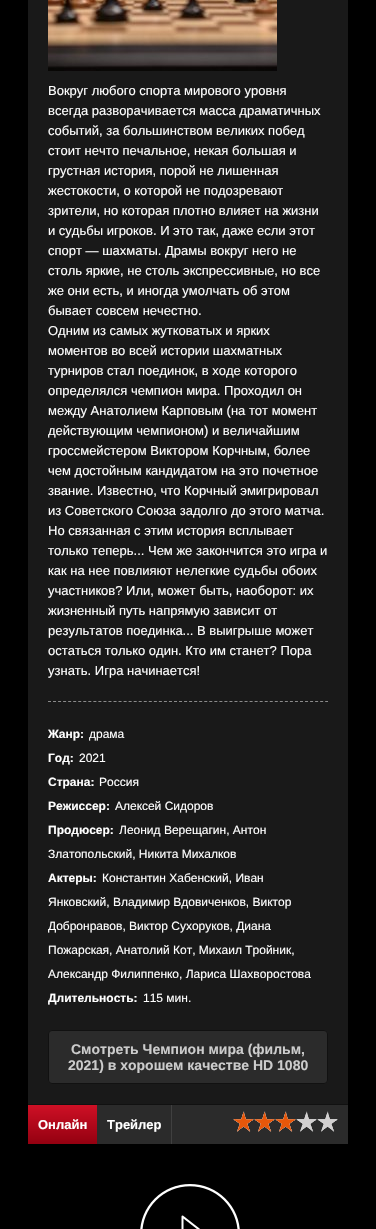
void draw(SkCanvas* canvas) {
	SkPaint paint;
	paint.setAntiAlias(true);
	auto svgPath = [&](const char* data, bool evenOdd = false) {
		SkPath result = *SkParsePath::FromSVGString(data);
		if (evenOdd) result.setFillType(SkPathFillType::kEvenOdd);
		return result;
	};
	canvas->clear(0xff000000);
	paint.setColor(0xff191919);
	canvas->drawRect(SkRect::MakeXYWH(28, 0, 320, 1104), paint);
	canvas->drawImageRect(SkImages::DeferredFromEncodedData(SkData::MakeFromFileName("img1.png")), SkRect::MakeXYWH(48, 0, 229, 71), SkSamplingOptions());
	paint.setStroke(true);
	paint.setStrokeWidth(1);
	paint.setColor(0xff8a8a8a);
	paint.setPathEffect(SkDashPathEffect::Make({{3, 2.04f}}, 0));
	canvas->drawPath(svgPath("M48 701.5H328"), paint);
	paint.setPathEffect(nullptr);
	SkFont f1(fontMgr->matchFamilyStyle("Liberation Sans", SkFontStyle::Normal()), 13);
	f1.setSubpixel(true);
	paint.setStroke(false);
	paint.setColor(0xffffffff);
	canvas->drawString("Вокруг любого спорта мирового уровня", 48, 95, f1, paint);
	canvas->drawString("всегда разворачивается масса драматичных", 48, 115, f1, paint);
	canvas->drawString("событий, за большинством великих побед", 48, 135, f1, paint);
	canvas->drawString("стоит нечто печальное, некая большая и", 48, 155, f1, paint);
	canvas->drawString("грустная история, порой не лишенная", 48, 175, f1, paint);
	canvas->drawString("жестокости, о которой не подозревают", 48, 195, f1, paint);
	canvas->drawString("зрители, но которая плотно влияет на жизни", 48, 215, f1, paint);
	canvas->drawString("и судьбы игроков. И это так, даже если этот", 48, 235, f1, paint);
	canvas->drawString("спорт — шахматы. Драмы вокруг него не", 48, 255, f1, paint);
	canvas->drawString("столь яркие, не столь экспрессивные, но все", 48, 275, f1, paint);
	canvas->drawString("же они есть, и иногда умолчать об этом", 48, 295, f1, paint);
	canvas->drawString("бывает совсем нечестно.", 48, 315, f1, paint);
	canvas->drawString("Одним из самых жутковатых и ярких", 48, 335, f1, paint);
	canvas->drawString("моментов во всей истории шахматных", 48, 355, f1, paint);
	canvas->drawString("турниров стал поединок, в ходе которого", 48, 375, f1, paint);
	canvas->drawString("определялся чемпион мира. Проходил он", 48, 395, f1, paint);
	canvas->drawString("между Анатолием Карповым (на тот момент", 48, 415, f1, paint);
	canvas->drawString("действующим чемпионом) и величайшим", 48, 435, f1, paint);
	canvas->drawString("гроссмейстером Виктором Корчным, более", 48, 455, f1, paint);
	canvas->drawString("чем достойным кандидатом на это почетное", 48, 475, f1, paint);
	canvas->drawString("звание. Известно, что Корчный эмигрировал", 48, 495, f1, paint);
	canvas->drawString("из Советского Союза задолго до этого матча.", 48, 515, f1, paint);
	canvas->drawString("Но связанная с этим история всплывает", 48, 535, f1, paint);
	canvas->drawString("только теперь... Чем же закончится это игра и", 48, 555, f1, paint);
	canvas->drawString("как на нее повлияют нелегкие судьбы обоих", 48, 575, f1, paint);
	canvas->drawString("участников? Или, может быть, наоборот: их", 48, 595, f1, paint);
	canvas->drawString("жизненный путь напрямую зависит от", 48, 615, f1, paint);
	canvas->drawString("результатов поединка... В выигрыше может", 48, 635, f1, paint);
	canvas->drawString("остаться только один. Кто им станет? Пора", 48, 655, f1, paint);
	canvas->drawString("узнать. Игра начинается!", 48, 675, f1, paint);
	SkFont f2(fontMgr->matchFamilyStyle("Liberation Sans", SkFontStyle::Bold()), 12);
	f2.setSubpixel(true);
	canvas->drawString("Жанр:", 48, 738, f2, paint);
	SkFont f3(fontMgr->matchFamilyStyle("Liberation Sans", SkFontStyle::Normal()), 12);
	f3.setSubpixel(true);
	canvas->drawString("драма", 89, 738, f3, paint);
	canvas->drawString("Год:", 48, 762, f2, paint);
	canvas->drawString("2021", 79, 762, f3, paint);
	canvas->drawString("Страна:", 48, 786, f2, paint);
	canvas->drawString("Россия", 99, 786, f3, paint);
	canvas->drawString("Режиссер:", 48, 810, f2, paint);
	canvas->drawString("Алексей Сидоров", 115, 810, f3, paint);
	canvas->drawString("Продюсер:", 48, 834, f2, paint);
	canvas->drawString("Леонид Верещагин, Антон", 119, 834, f3, paint);
	canvas->drawString("Златопольский, Никита Михалков", 48, 858, f3, paint);
	canvas->drawString("Актеры:", 48, 882, f2, paint);
	canvas->drawString("Константин Хабенский, Иван", 102, 882, f3, paint);
	canvas->drawString("Янковский, Владимир Вдовиченков, Виктор", 48, 906, f3, paint);
	canvas->drawString("Добронравов, Виктор Сухоруков, Диана", 48, 930, f3, paint);
	canvas->drawString("Пожарская, Анатолий Кот, Михаил Тройник,", 48, 954, f3, paint);
	canvas->drawString("Александр Филиппенко, Лариса Шахворостова", 48, 978, f3, paint);
	canvas->drawString("Длительность:", 48, 1002, f2, paint);
	canvas->drawString("115 мин.", 143, 1002, f3, paint);
	paint.setColor(0xff2b2b2b);
	canvas->drawRoundRect(SkRect::MakeXYWH(48.5, 1030.5, 279, 53), 3.5, 3.5, paint);
	paint.setStroke(true);
	paint.setColor(0xff111111);
	canvas->drawRoundRect(SkRect::MakeXYWH(48.5, 1030.5, 279, 53), 3.5, 3.5, paint);
	SkFont f4(fontMgr->matchFamilyStyle("Liberation Sans", SkFontStyle::Bold()), 14);
	f4.setSubpixel(true);
	paint.setStroke(false);
	paint.setColor(0xffcccccc);
	canvas->drawString("Смотреть Чемпион мира (фильм,", 71, 1054, f4, paint);
	canvas->drawString("2021) в хорошем качестве HD 1080", 68, 1070, f4, paint);
	paint.setColor(0xff2b2b2b);
	canvas->drawRect(SkRect::MakeXYWH(97, 1105, 251, 39), paint);
	paint.setColor(0xff111111);
	canvas->drawRect(SkRect::MakeXYWH(28, 1104, 320, 1), paint);
	{
		const SkColor colors[] = {0xffce1025, 0xff920010};
		const float stops[] = {0, 1};
		const SkPoint ends[] = {{63, 1105}, {63, 1145}};
		paint.setShader(SkGradientShader::MakeLinear(ends, colors, stops, 2, SkTileMode::kClamp));
		paint.setAlpha(255);
	}
	canvas->drawRect(SkRect::MakeXYWH(28, 1105, 69, 39), paint);
	SkFont f5(fontMgr->matchFamilyStyle("Liberation Sans", SkFontStyle::Bold()), 13);
	f5.setSubpixel(true);
	paint.setShader(nullptr);
	paint.setColor(0xffffffff);
	canvas->drawString("Онлайн", 38, 1129, f5, paint);
	paint.setColor(0xff404040);
	canvas->drawRect(SkRect::MakeXYWH(171, 1105, 1, 39), paint);
	paint.setColor(0xffffffff);
	canvas->drawString("Трейлер", 107, 1129, f5, paint);
	canvas->drawImageRect(SkImages::DeferredFromEncodedData(SkData::MakeFromFileName("img2.png")), SkRect::MakeXYWH(233, 1111, 105, 21), SkSamplingOptions());
	canvas->drawImageRect(SkImages::DeferredFromEncodedData(SkData::MakeFromFileName("img3.png")), SkRect::MakeXYWH(233, 1111, 63, 21), SkSamplingOptions());
	canvas->drawImageRect(SkImages::DeferredFromEncodedData(SkData::MakeFromFileName("img4.png")), SkRect::MakeXYWH(140, 1184, 100, 45), SkSamplingOptions());
}
